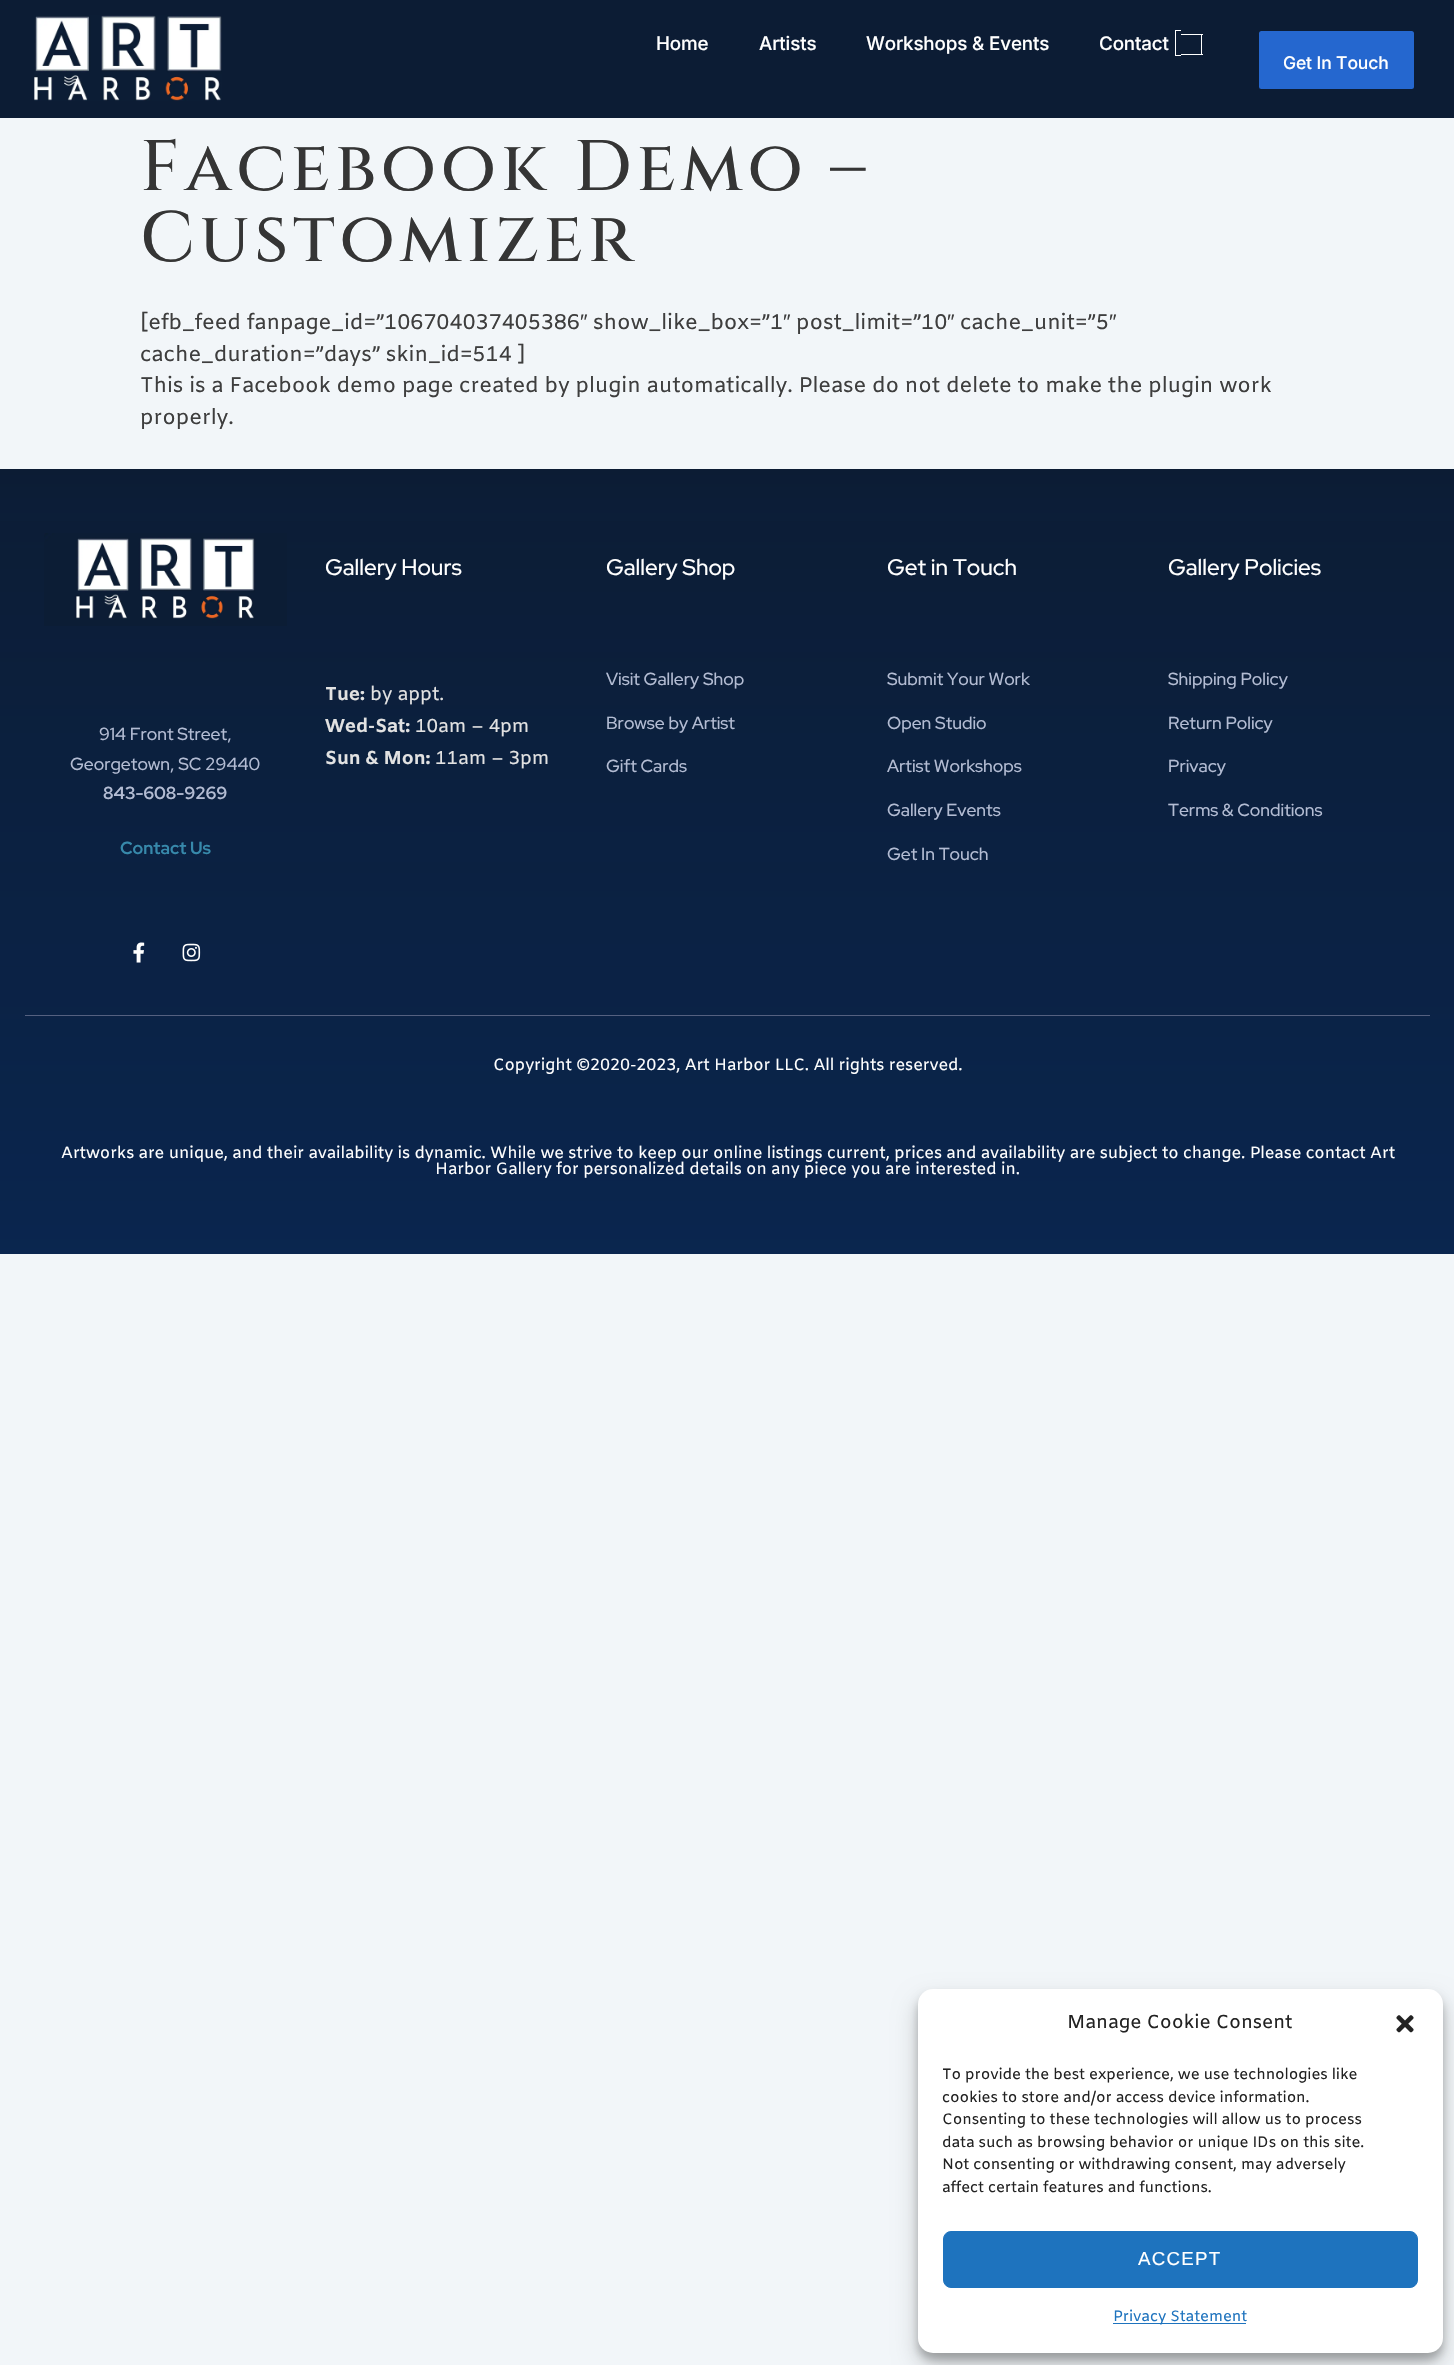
void draw(SkCanvas* canvas) {
	SkPaint paint;
	paint.setAntiAlias(true);
	auto spacedText = [&](const char* s, float x, float y, const SkFont& font, const SkPaint& ink, float letter, float word) {
		std::vector<SkGlyphID> glyphs(font.countText(s, strlen(s), SkTextEncoding::kUTF8));
		std::vector<float> xs(glyphs.size());
		font.textToGlyphs(s, strlen(s), SkTextEncoding::kUTF8, glyphs);
		font.getXPos(glyphs, xs, x);
		float extra = 0;
		for (size_t i = 0; i < glyphs.size(); i++) {
			xs[i] += extra;
			extra += letter + word * (glyphs[i] == font.unicharToGlyph(' '));
		}
		canvas->drawTextBlob(SkTextBlob::MakeFromPosHGlyphs(glyphs, xs, y, font), 0, 0, ink);
	};
	canvas->clear(0xfff2f6f9);
	paint.setColor(0xff0c1c34);
	canvas->drawRect(SkRect::MakeXYWH(0, 0, 1454, 118), paint);
	canvas->drawImageRect(SkImages::DeferredFromEncodedData(SkData::MakeFromFileName("img1.png")), SkRect::MakeXYWH(34, 15, 188, 86), SkSamplingOptions());
	SkFont f1(fontMgr->matchFamilyStyle("Inter", SkFontStyle(500, SkFontStyle::kNormal_Width, SkFontStyle::kUpright_Slant)), 18.75);
	f1.setSubpixel(true);
	paint.setColor(0xffffffff);
	spacedText("Home", 656, 50, f1, paint, -0.12, 0);
	spacedText("Artists", 759, 50, f1, paint, -0.12, 0);
	spacedText("Workshops & Events", 866, 50, f1, paint, -0.12, 0);
	canvas->drawRect(SkRect::MakeXYWH(1175, 30, 6, 1), paint);
	canvas->drawRect(SkRect::MakeXYWH(1175, 55, 6, 1), paint);
	canvas->drawRect(SkRect::MakeXYWH(1175, 30, 1, 26), paint);
	canvas->drawRect(SkRect::MakeXYWH(1181, 34, 22, 1), paint);
	spacedText("Contact", 1099, 50, f1, paint, -0.12, 0);
	canvas->drawRect(SkRect::MakeXYWH(1201, 34, 1, 21), paint);
	canvas->drawRect(SkRect::MakeXYWH(1181, 54, 22, 1), paint);
	paint.setColor(0xff2567cf);
	canvas->drawRoundRect(SkRect::MakeXYWH(1259, 31, 155, 58), 2.5, 2.5, paint);
	SkFont f2(fontMgr->matchFamilyStyle("Inter", SkFontStyle(500, SkFontStyle::kNormal_Width, SkFontStyle::kUpright_Slant)), 17.5);
	f2.setSubpixel(true);
	paint.setColor(0xffffffff);
	spacedText("Get In Touch", 1283, 69, f2, paint, -0.12, 0);
	SkFont f3(fontMgr->matchFamilyStyle("Cinzel", SkFontStyle(500, SkFontStyle::kNormal_Width, SkFontStyle::kUpright_Slant)), 71.25);
	f3.setSubpixel(true);
	paint.setColor(0xff353535);
	spacedText("Facebook Demo –", 140, 190, f3, paint, 4.75, 0);
	spacedText("Customizer", 140, 261, f3, paint, 4.75, 0);
	SkFont f4(fontMgr->matchFamilyStyle("Amiko", SkFontStyle::Normal()), 21.25);
	f4.setSubpixel(true);
	paint.setColor(0xff3e3e3e);
	spacedText("[efb_feed fanpage_id=”106704037405386", 140, 329, f4, paint, -0.12, 0);
	SkFont f5(fontMgr->matchFamilyStyle("Liberation Sans", SkFontStyle::Normal()), 21.25);
	f5.setSubpixel(true);
	spacedText("″", 580, 329, f5, paint, -0.12, 0);
	spacedText("show_like_box=”1", 593, 329, f4, paint, -0.12, 0);
	spacedText("″", 783, 329, f5, paint, -0.12, 0);
	spacedText("post_limit=”10", 796, 329, f4, paint, -0.12, 0);
	spacedText("″", 947, 329, f5, paint, -0.12, 0);
	spacedText("cache_unit=”5", 960, 329, f4, paint, -0.12, 0);
	spacedText("″", 1109, 329, f5, paint, -0.12, 0);
	spacedText("cache_duration=”days” skin_id=514 ]", 140, 361, f4, paint, -0.12, 0);
	spacedText("This is a Facebook demo page created by plugin automatically. Please do not delete to make the plugin work", 140, 392, f4, paint, -0.12, 0);
	spacedText("properly.", 140, 424, f4, paint, -0.12, 0);
	{
		const SkColor colors[] = {0xff0c1c34, 0xff0c3777};
		const float stops[] = {0, 1};
		const SkPoint ends[] = {{728, 469}, {728, 1254}};
		paint.setShader(SkGradientShader::MakeLinear(ends, colors, stops, 2, SkTileMode::kClamp));
		paint.setAlpha(255);
	}
	canvas->drawRect(SkRect::MakeXYWH(0, 469, 1454, 785), paint);
	{
		const SkColor colors[] = {0x800c1c34, 0x80071325};
		const float stops[] = {0, 1};
		const SkPoint ends[] = {{728, 469}, {728, 1254}};
		paint.setShader(SkGradientShader::MakeLinear(ends, colors, stops, 2, SkTileMode::kClamp));
		paint.setAlpha(255);
	}
	canvas->drawRect(SkRect::MakeXYWH(0, 521, 1454, 733), paint);
	paint.setShader(nullptr);
	paint.setColor(0xff556180);
	canvas->drawRect(SkRect::MakeXYWH(25, 1015, 1405, 1), paint);
	canvas->drawImageRect(SkImages::DeferredFromEncodedData(SkData::MakeFromFileName("img2.png")), SkRect::MakeXYWH(44, 533, 243, 93), SkSamplingOptions());
	SkFont f6(fontMgr->matchFamilyStyle("Red Hat Display", SkFontStyle(500, SkFontStyle::kNormal_Width, SkFontStyle::kUpright_Slant)), 17.5);
	f6.setSubpixel(true);
	paint.setColor(0xffb3bcd3);
	canvas->drawString("914 Front Street,", 99, 740, f6, paint);
	canvas->drawString("Georgetown, SC 29440", 70, 770, f6, paint);
	SkFont f7(fontMgr->matchFamilyStyle("Red Hat Display", SkFontStyle::Bold()), 17.5);
	f7.setSubpixel(true);
	canvas->drawString("843-608-9269", 103, 799, f7, paint);
	paint.setColor(0xff3789ab);
	canvas->drawString("Contact Us", 120, 854, f7, paint);
	canvas->drawImageRect(SkImages::DeferredFromEncodedData(SkData::MakeFromFileName("img3.png")), SkRect::MakeXYWH(133, 942, 12, 21), SkSamplingOptions());
	canvas->drawImageRect(SkImages::DeferredFromEncodedData(SkData::MakeFromFileName("img4.png")), SkRect::MakeXYWH(182, 943, 19, 19), SkSamplingOptions());
	SkFont f8(fontMgr->matchFamilyStyle("Red Hat Display", SkFontStyle(500, SkFontStyle::kNormal_Width, SkFontStyle::kUpright_Slant)), 22.5);
	f8.setSubpixel(true);
	paint.setColor(0xffffffff);
	canvas->drawString("Gallery Hours", 325, 575, f8, paint);
	SkFont f9(fontMgr->matchFamilyStyle("Amiko", SkFontStyle::Bold()), 18.75);
	f9.setSubpixel(true);
	paint.setColor(0xffe2e2e2);
	spacedText("Tue:", 325, 700, f9, paint, -0.12, 0);
	SkFont f10(fontMgr->matchFamilyStyle("Amiko", SkFontStyle::Normal()), 18.75);
	f10.setSubpixel(true);
	spacedText("by appt.", 370, 700, f10, paint, -0.12, 0);
	spacedText("Wed-Sat:", 325, 732, f9, paint, -0.12, 0);
	spacedText("10am – 4pm", 415, 732, f10, paint, -0.12, 0);
	spacedText("Sun & Mon:", 325, 764, f9, paint, -0.12, 0);
	spacedText("11am – 3pm", 435, 764, f10, paint, -0.12, 0);
	paint.setColor(0xffffffff);
	canvas->drawString("Gallery Shop", 606, 575, f8, paint);
	paint.setColor(0xffb3bcd3);
	canvas->drawString("Visit Gallery Shop", 606, 685, f6, paint);
	canvas->drawString("Browse by Artist", 606, 729, f6, paint);
	canvas->drawString("Gift Cards", 606, 772, f6, paint);
	paint.setColor(0xffffffff);
	canvas->drawString("Get in Touch", 887, 575, f8, paint);
	paint.setColor(0xffb3bcd3);
	canvas->drawString("Submit Your Work", 887, 685, f6, paint);
	canvas->drawString("Open Studio", 887, 729, f6, paint);
	canvas->drawString("Artist Workshops", 887, 772, f6, paint);
	canvas->drawString("Gallery Events", 887, 816, f6, paint);
	canvas->drawString("Get In Touch", 887, 860, f6, paint);
	paint.setColor(0xffffffff);
	canvas->drawString("Gallery Policies", 1168, 575, f8, paint);
	paint.setColor(0xffb3bcd3);
	canvas->drawString("Shipping Policy", 1168, 685, f6, paint);
	canvas->drawString("Return Policy", 1168, 729, f6, paint);
	canvas->drawString("Privacy", 1168, 772, f6, paint);
	canvas->drawString("Terms & Conditions", 1168, 816, f6, paint);
	SkFont f11(fontMgr->matchFamilyStyle("Amiko", SkFontStyle::Normal()), 16.25);
	f11.setSubpixel(true);
	paint.setColor(0xffffffff);
	spacedText("Copyright ©2020-2023, Art Harbor LLC. All rights reserved.", 493, 1070, f11, paint, -0.12, 0);
	spacedText("Artworks are unique, and their availability is dynamic. While we strive to keep our online listings current, prices and availability are subject to change. Please contact Art", 61, 1158, f11, paint, -0.12, 0);
	spacedText("Harbor Gallery for personalized details on any piece you are interested in.", 435, 1174, f11, paint, -0.12, 0);
	paint.setColor(0x3b000000);
	paint.setMaskFilter(SkMaskFilter::MakeBlur(kNormal_SkBlurStyle, 4));
	canvas->drawRoundRect(SkRect::MakeXYWH(918, 1996, 525, 364), 15, 15, paint);
	paint.setMaskFilter(nullptr);
	paint.setColor(0x30000000);
	paint.setMaskFilter(SkMaskFilter::MakeBlur(kNormal_SkBlurStyle, 12.5));
	canvas->drawRoundRect(SkRect::MakeXYWH(918, 2001, 525, 364), 15, 15, paint);
	paint.setMaskFilter(nullptr);
	paint.setColor(0xffffffff);
	canvas->drawRoundRect(SkRect::MakeXYWH(918, 1989, 525, 364), 15, 15, paint);
	paint.setColor(0xff222222);
	spacedText("Manage Cookie Consent", 1067, 2028, f10, paint, -0.12, 0);
	canvas->drawImageRect(SkImages::DeferredFromEncodedData(SkData::MakeFromFileName("img5.png")), SkRect::MakeXYWH(1396, 2015, 18, 18), SkSamplingOptions());
	SkFont f12(fontMgr->matchFamilyStyle("Amiko", SkFontStyle::Normal()), 15);
	f12.setSubpixel(true);
	spacedText("To provide the best experience, we use technologies like", 942, 2079, f12, paint, -0.12, 0);
	spacedText("cookies to store and/or access device information.", 942, 2102, f12, paint, -0.12, 0);
	spacedText("Consenting to these technologies will allow us to process", 942, 2124, f12, paint, -0.12, 0);
	spacedText("data such as browsing behavior or unique IDs on this site.", 942, 2147, f12, paint, -0.12, 0);
	spacedText("Not consenting or withdrawing consent, may adversely", 942, 2169, f12, paint, -0.12, 0);
	spacedText("affect certain features and functions.", 942, 2192, f12, paint, -0.12, 0);
	paint.setColor(0xff1e73be);
	canvas->drawRoundRect(SkRect::MakeXYWH(943.5, 2231.5, 474, 56), 7.5, 7.5, paint);
	paint.setStroke(true);
	paint.setStrokeWidth(1);
	canvas->drawRoundRect(SkRect::MakeXYWH(943.5, 2231.5, 474, 56), 7.5, 7.5, paint);
	SkFont f13(fontMgr->matchFamilyStyle("Liberation Sans", SkFontStyle::Normal()), 18.75);
	f13.setSubpixel(true);
	paint.setStroke(false);
	paint.setColor(0xffffffff);
	spacedText("ACCEPT", 1138, 2265, f13, paint, 1.25, 0);
	paint.setColor(0xff1e73be);
	canvas->drawRect(SkRect::MakeXYWH(1113, 2323, 133, 1), paint);
	spacedText("Privacy Statement", 1113, 2321, f12, paint, -0.12, 0);
}
